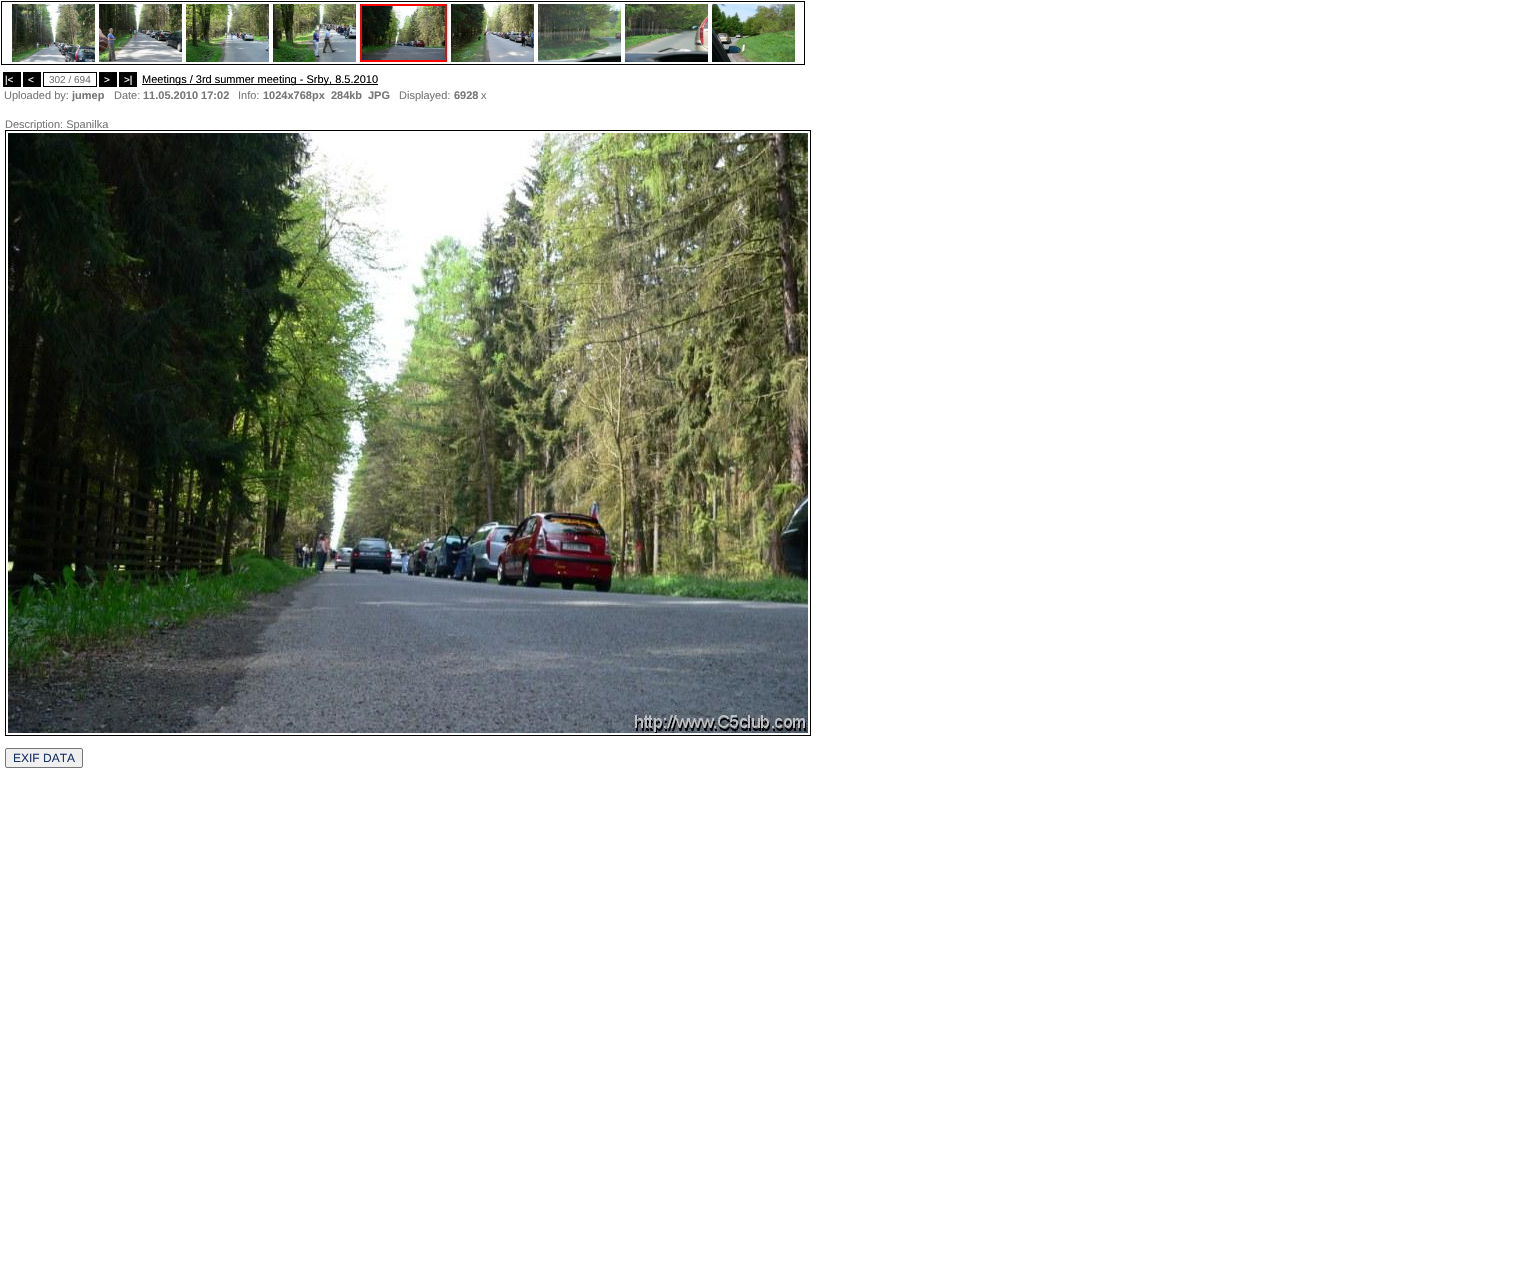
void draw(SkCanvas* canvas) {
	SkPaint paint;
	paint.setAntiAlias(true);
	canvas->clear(0xffffffff);
	paint.setStroke(true);
	paint.setStrokeWidth(1);
	paint.setColor(0xff000000);
	canvas->drawRect(SkRect::MakeXYWH(1.5, 1.5, 803, 63), paint);
	canvas->drawImageRect(SkImages::DeferredFromEncodedData(SkData::MakeFromFileName("img1.png")), SkRect::MakeXYWH(12, 4, 83, 58), SkSamplingOptions());
	canvas->drawImageRect(SkImages::DeferredFromEncodedData(SkData::MakeFromFileName("img2.png")), SkRect::MakeXYWH(99, 4, 83, 58), SkSamplingOptions());
	canvas->drawImageRect(SkImages::DeferredFromEncodedData(SkData::MakeFromFileName("img3.png")), SkRect::MakeXYWH(186, 4, 83, 58), SkSamplingOptions());
	canvas->drawImageRect(SkImages::DeferredFromEncodedData(SkData::MakeFromFileName("img4.png")), SkRect::MakeXYWH(273, 4, 83, 58), SkSamplingOptions());
	paint.setStrokeWidth(2);
	paint.setColor(0xffff0000);
	canvas->drawRect(SkRect::MakeXYWH(361, 5, 85, 56), paint);
	canvas->drawImageRect(SkImages::DeferredFromEncodedData(SkData::MakeFromFileName("img5.png")), SkRect::MakeXYWH(451, 4, 83, 58), SkSamplingOptions());
	canvas->drawImageRect(SkImages::DeferredFromEncodedData(SkData::MakeFromFileName("img6.png")), SkRect::MakeXYWH(538, 4, 83, 58), SkSamplingOptions());
	canvas->drawImageRect(SkImages::DeferredFromEncodedData(SkData::MakeFromFileName("img7.png")), SkRect::MakeXYWH(625, 4, 83, 58), SkSamplingOptions());
	canvas->drawImageRect(SkImages::DeferredFromEncodedData(SkData::MakeFromFileName("img8.png")), SkRect::MakeXYWH(712, 4, 83, 58), SkSamplingOptions());
	canvas->drawImageRect(SkImages::DeferredFromEncodedData(SkData::MakeFromFileName("img9.png")), SkRect::MakeXYWH(362, 6, 83, 54), SkSamplingOptions());
	paint.setStroke(false);
	paint.setColor(0xff000000);
	canvas->drawRect(SkRect::MakeXYWH(3, 72, 18, 15), paint);
	SkFont f1(fontMgr->matchFamilyStyle("Liberation Sans", SkFontStyle::Normal()), 10);
	f1.setSubpixel(true);
	paint.setColor(0xffffffff);
	canvas->drawString("|<", 5, 83, f1, paint);
	paint.setColor(0xff000000);
	canvas->drawRect(SkRect::MakeXYWH(23, 72, 18, 15), paint);
	paint.setColor(0xffffffff);
	canvas->drawString("<", 28, 83, f1, paint);
	paint.setStroke(true);
	paint.setStrokeWidth(1);
	paint.setColor(0xff000000);
	canvas->drawRect(SkRect::MakeXYWH(43.5, 72.5, 53, 14), paint);
	paint.setStroke(false);
	paint.setColor(0xff777777);
	canvas->drawString("302 / 694", 49, 83, f1, paint);
	paint.setColor(0xff000000);
	canvas->drawRect(SkRect::MakeXYWH(99, 72, 18, 15), paint);
	paint.setColor(0xffffffff);
	canvas->drawString(">", 104, 83, f1, paint);
	paint.setColor(0xff000000);
	canvas->drawRect(SkRect::MakeXYWH(119, 72, 18, 15), paint);
	paint.setColor(0xffffffff);
	canvas->drawString(">|", 124, 83, f1, paint);
	paint.setColor(0xff000000);
	canvas->drawRect(SkRect::MakeXYWH(142, 84, 236, 1), paint);
	SkFont f2(fontMgr->matchFamilyStyle("Liberation Sans", SkFontStyle::Normal()), 11);
	f2.setSubpixel(true);
	canvas->drawString("Meetings / 3rd summer meeting - Srby, 8.5.2010", 142, 83, f2, paint);
	paint.setColor(0xff777777);
	canvas->drawString("Uploaded by:", 4, 99, f2, paint);
	SkFont f3(fontMgr->matchFamilyStyle("Liberation Sans", SkFontStyle::Bold()), 11);
	f3.setSubpixel(true);
	canvas->drawString("jumep", 72, 99, f3, paint);
	canvas->drawString("Date:", 114, 99, f2, paint);
	canvas->drawString("11.05.2010 17:02", 143, 99, f3, paint);
	canvas->drawString("Info:", 238, 99, f2, paint);
	canvas->drawString("1024x768px  284kb", 263, 99, f3, paint);
	canvas->drawString("JPG", 368, 99, f3, paint);
	canvas->drawString("Displayed:", 399, 99, f2, paint);
	canvas->drawString("6928", 454, 99, f3, paint);
	canvas->drawString("x", 481, 99, f2, paint);
	paint.setStroke(true);
	paint.setColor(0xff000000);
	canvas->drawRect(SkRect::MakeXYWH(5.5, 130.5, 805, 605), paint);
	paint.setStroke(false);
	paint.setColor(0xff777777);
	canvas->drawString("Description: Spanilka", 5, 128, f2, paint);
	canvas->drawImageRect(SkImages::DeferredFromEncodedData(SkData::MakeFromFileName("img10.png")), SkRect::MakeXYWH(8, 133, 800, 600), SkSamplingOptions());
	paint.setColor(0xffefefef);
	canvas->drawRoundRect(SkRect::MakeXYWH(5.5, 748.5, 77, 19), 1.5, 1.5, paint);
	paint.setStroke(true);
	paint.setColor(0xff767676);
	canvas->drawRoundRect(SkRect::MakeXYWH(5.5, 748.5, 77, 19), 1.5, 1.5, paint);
	SkFont f4(fontMgr->matchFamilyStyle("Liberation Sans", SkFontStyle::Normal()), 12);
	f4.setSubpixel(true);
	paint.setStroke(false);
	paint.setColor(0xff1b3361);
	canvas->drawString("EXIF DATA", 13, 762, f4, paint);
}
